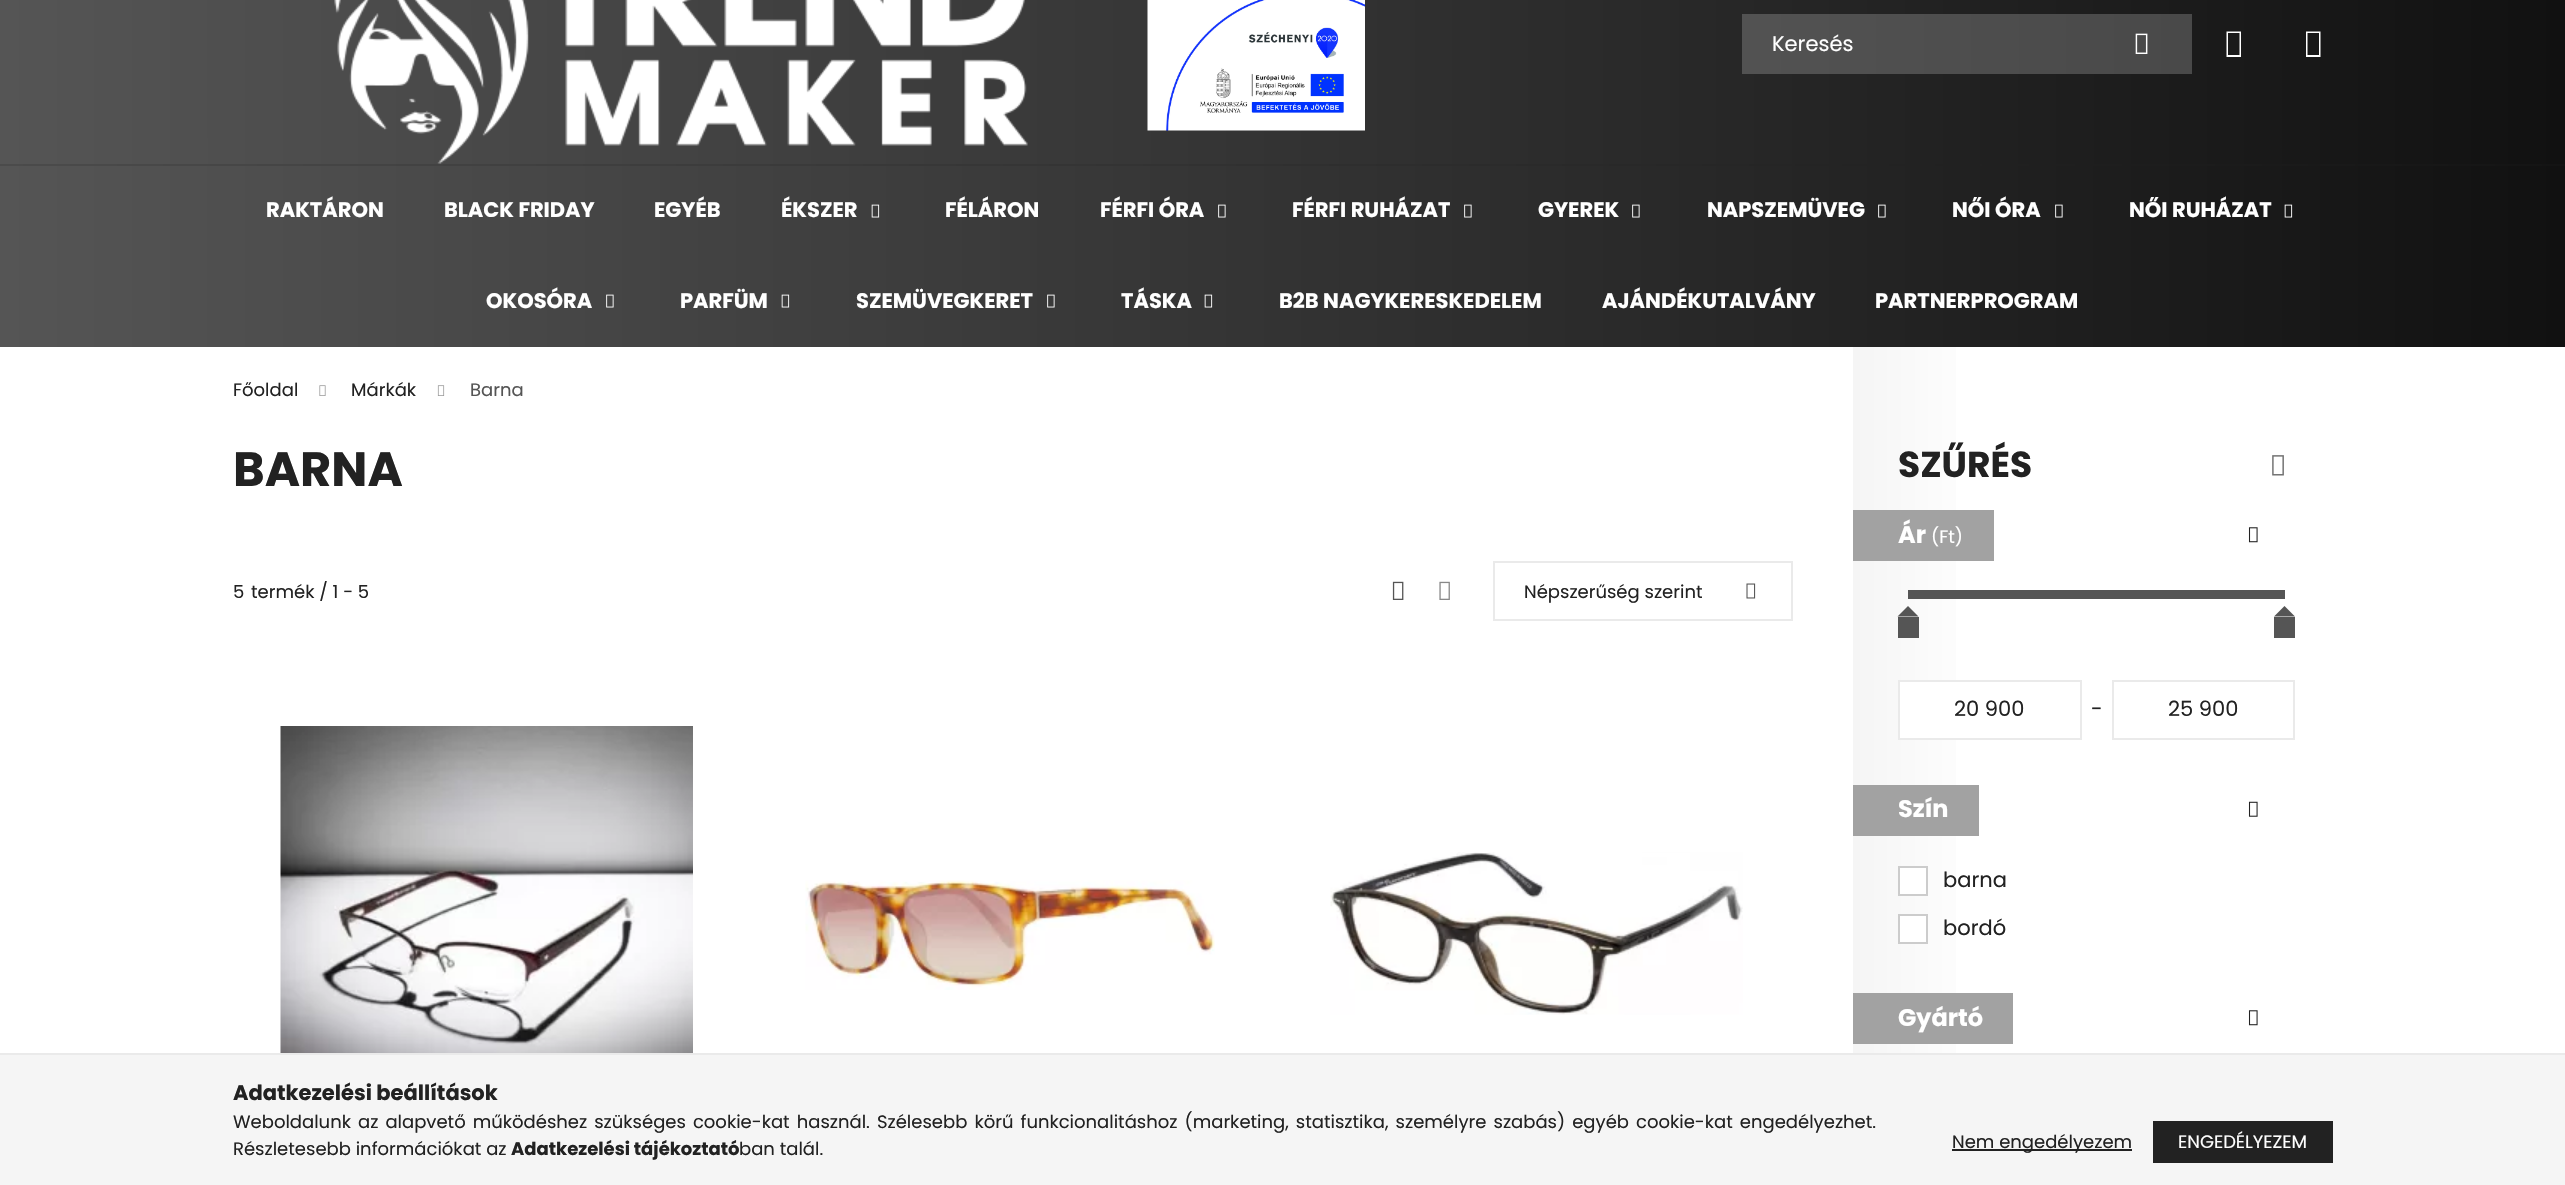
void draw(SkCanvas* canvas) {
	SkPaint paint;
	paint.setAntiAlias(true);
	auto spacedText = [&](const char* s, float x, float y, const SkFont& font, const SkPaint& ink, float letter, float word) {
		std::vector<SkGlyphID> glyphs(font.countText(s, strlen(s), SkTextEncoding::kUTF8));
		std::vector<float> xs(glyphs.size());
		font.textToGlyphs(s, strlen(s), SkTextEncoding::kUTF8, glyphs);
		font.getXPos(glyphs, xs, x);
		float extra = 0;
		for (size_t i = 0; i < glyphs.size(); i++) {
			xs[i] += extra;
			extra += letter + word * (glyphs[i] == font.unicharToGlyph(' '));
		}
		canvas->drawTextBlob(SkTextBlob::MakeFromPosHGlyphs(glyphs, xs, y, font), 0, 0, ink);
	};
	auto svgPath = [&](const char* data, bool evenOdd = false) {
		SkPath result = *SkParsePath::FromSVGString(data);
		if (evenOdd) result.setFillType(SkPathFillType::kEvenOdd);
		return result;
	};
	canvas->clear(0xffffffff);
	{
		const SkColor colors[] = {0xff555555, 0xff111111};
		const float stops[] = {0, 1};
		const SkPoint ends[] = {{0, 44}, {2565, 43}};
		paint.setShader(SkGradientShader::MakeLinear(ends, colors, stops, 2, SkTileMode::kClamp));
		paint.setAlpha(255);
	}
	canvas->drawRect(SkRect::MakeXYWH(0, 0, 2565, 164), paint);
	{
		const SkColor colors[] = {0xff777777, 0xff414141};
		const float stops[] = {0, 1};
		const SkPoint ends[] = {{0, 44}, {2565, 43}};
		paint.setShader(SkGradientShader::MakeLinear(ends, colors, stops, 2, SkTileMode::kClamp));
		paint.setAlpha(255);
	}
	canvas->drawRect(SkRect::MakeXYWH(1742, 14, 450, 60), paint);
	canvas->drawImageRect(SkImages::DeferredFromEncodedData(SkData::MakeFromFileName("img1.png")), SkRect::MakeXYWH(334, 0, 694, 164), SkSamplingOptions());
	canvas->drawImageRect(SkImages::DeferredFromEncodedData(SkData::MakeFromFileName("img2.png")), SkRect::MakeXYWH(1147, 0, 218, 131), SkSamplingOptions());
	SkFont f1(fontMgr->matchFamilyStyle("Poppins", SkFontStyle::Normal()), 21);
	f1.setSubpixel(true);
	paint.setShader(nullptr);
	paint.setColor(0xffffffff);
	canvas->drawString("Keresés", 1772, 51, f1, paint);
	canvas->drawImageRect(SkImages::DeferredFromEncodedData(SkData::MakeFromFileName("img3.png")), SkRect::MakeXYWH(2135, 33, 13, 21), SkSamplingOptions());
	canvas->drawPath(svgPath("M2226.5 57V31.5H2241V57ZM2228 55H2239.5V33H2228Z"), paint);
	canvas->drawPath(svgPath("M2306 57V31.5H2320.5V57ZM2307.5 55H2319V33H2307.5Z"), paint);
	{
		const SkColor colors[] = {0xff555555, 0xff111111};
		const float stops[] = {0, 1};
		const SkPoint ends[] = {{0, 256}, {2565, 256}};
		paint.setShader(SkGradientShader::MakeLinear(ends, colors, stops, 2, SkTileMode::kClamp));
		paint.setAlpha(255);
	}
	canvas->drawRect(SkRect::MakeXYWH(0, 166, 2565, 181), paint);
	{
		const SkColor colors[] = {0xff4b4b4b, 0xff141414};
		const float stops[] = {0, 1};
		const SkPoint ends[] = {{0, 256}, {2565, 256}};
		paint.setShader(SkGradientShader::MakeLinear(ends, colors, stops, 2, SkTileMode::kClamp));
		paint.setAlpha(255);
	}
	canvas->drawRect(SkRect::MakeXYWH(0, 164, 2565, 2), paint);
	SkFont f2(fontMgr->matchFamilyStyle("Poppins", SkFontStyle::Bold()), 21);
	f2.setSubpixel(true);
	paint.setShader(nullptr);
	paint.setColor(0xffffffff);
	canvas->drawString("RAKTÁRON", 266, 217, f2, paint);
	canvas->drawString("BLACK FRIDAY", 444, 217, f2, paint);
	canvas->drawString("EGYÉB", 654, 217, f2, paint);
	canvas->drawString("ÉKSZER", 781, 217, f2, paint);
	canvas->drawImageRect(SkImages::DeferredFromEncodedData(SkData::MakeFromFileName("img4.png")), SkRect::MakeXYWH(871, 204, 9, 14), SkSamplingOptions());
	canvas->drawString("FÉLÁRON", 945, 217, f2, paint);
	canvas->drawString("FÉRFI ÓRA", 1100, 217, f2, paint);
	canvas->drawImageRect(SkImages::DeferredFromEncodedData(SkData::MakeFromFileName("img5.png")), SkRect::MakeXYWH(1218, 204, 8, 14), SkSamplingOptions());
	canvas->drawString("FÉRFI RUHÁZAT", 1292, 217, f2, paint);
	canvas->drawImageRect(SkImages::DeferredFromEncodedData(SkData::MakeFromFileName("img6.png")), SkRect::MakeXYWH(1464, 204, 8, 14), SkSamplingOptions());
	canvas->drawString("GYEREK", 1538, 217, f2, paint);
	canvas->drawImageRect(SkImages::DeferredFromEncodedData(SkData::MakeFromFileName("img7.png")), SkRect::MakeXYWH(1632, 204, 8, 14), SkSamplingOptions());
	canvas->drawString("NAPSZEMÜVEG", 1707, 217, f2, paint);
	canvas->drawImageRect(SkImages::DeferredFromEncodedData(SkData::MakeFromFileName("img8.png")), SkRect::MakeXYWH(1878, 204, 8, 14), SkSamplingOptions());
	canvas->drawString("NŐI ÓRA", 1952, 217, f2, paint);
	canvas->drawImageRect(SkImages::DeferredFromEncodedData(SkData::MakeFromFileName("img9.png")), SkRect::MakeXYWH(2055, 204, 8, 14), SkSamplingOptions());
	canvas->drawString("NŐI RUHÁZAT", 2129, 217, f2, paint);
	canvas->drawImageRect(SkImages::DeferredFromEncodedData(SkData::MakeFromFileName("img10.png")), SkRect::MakeXYWH(2284, 204, 9, 14), SkSamplingOptions());
	canvas->drawString("OKOSÓRA", 486, 308, f2, paint);
	canvas->drawImageRect(SkImages::DeferredFromEncodedData(SkData::MakeFromFileName("img11.png")), SkRect::MakeXYWH(606, 294, 8, 14), SkSamplingOptions());
	canvas->drawString("PARFÜM", 680, 308, f2, paint);
	canvas->drawImageRect(SkImages::DeferredFromEncodedData(SkData::MakeFromFileName("img12.png")), SkRect::MakeXYWH(781, 294, 9, 14), SkSamplingOptions());
	canvas->drawString("SZEMÜVEGKERET", 856, 308, f2, paint);
	canvas->drawImageRect(SkImages::DeferredFromEncodedData(SkData::MakeFromFileName("img13.png")), SkRect::MakeXYWH(1047, 294, 8, 14), SkSamplingOptions());
	canvas->drawString("TÁSKA", 1121, 308, f2, paint);
	canvas->drawImageRect(SkImages::DeferredFromEncodedData(SkData::MakeFromFileName("img14.png")), SkRect::MakeXYWH(1204, 294, 9, 14), SkSamplingOptions());
	canvas->drawString("B2B NAGYKERESKEDELEM", 1279, 308, f2, paint);
	canvas->drawString("AJÁNDÉKUTALVÁNY", 1602, 308, f2, paint);
	canvas->drawString("PARTNERPROGRAM", 1875, 308, f2, paint);
	SkFont f3(fontMgr->matchFamilyStyle("Poppins", SkFontStyle::Normal()), 18);
	f3.setSubpixel(true);
	paint.setColor(0xff222222);
	canvas->drawString("Főoldal", 233, 396, f3, paint);
	canvas->drawImageRect(SkImages::DeferredFromEncodedData(SkData::MakeFromFileName("img15.png")), SkRect::MakeXYWH(319, 385, 7, 11), SkSamplingOptions());
	canvas->drawString("Márkák", 351, 396, f3, paint);
	canvas->drawImageRect(SkImages::DeferredFromEncodedData(SkData::MakeFromFileName("img16.png")), SkRect::MakeXYWH(437, 385, 8, 11), SkSamplingOptions());
	paint.setColor(0xff555555);
	canvas->drawString("Barna", 470, 396, f3, paint);
	SkFont f4(fontMgr->matchFamilyStyle("Poppins", SkFontStyle::Bold()), 48);
	f4.setSubpixel(true);
	paint.setColor(0xff222222);
	canvas->drawString("BARNA", 233, 486, f4, paint);
	canvas->drawString("5", 233, 598, f3, paint);
	canvas->drawString("termék / 1 - 5", 251, 598, f3, paint);
	canvas->drawImageRect(SkImages::DeferredFromEncodedData(SkData::MakeFromFileName("img17.png")), SkRect::MakeXYWH(1392, 581, 12, 19), SkSamplingOptions());
	canvas->drawImageRect(SkImages::DeferredFromEncodedData(SkData::MakeFromFileName("img18.png")), SkRect::MakeXYWH(1439, 581, 11, 19), SkSamplingOptions());
	paint.setStroke(true);
	paint.setStrokeWidth(2);
	paint.setColor(0xffeaeaea);
	canvas->drawRect(SkRect::MakeXYWH(1494, 562, 298, 58), paint);
	paint.setStroke(false);
	paint.setColor(0xff222222);
	canvas->drawString("Népszerűség szerint", 1524, 598, f3, paint);
	canvas->drawImageRect(SkImages::DeferredFromEncodedData(SkData::MakeFromFileName("img19.png")), SkRect::MakeXYWH(1746, 583, 10, 16), SkSamplingOptions());
	canvas->drawImageRect(SkImages::DeferredFromEncodedData(SkData::MakeFromFileName("img20.png")), SkRect::MakeXYWH(280, 726, 413, 327), SkSamplingOptions());
	canvas->drawImageRect(SkImages::DeferredFromEncodedData(SkData::MakeFromFileName("img21.png")), SkRect::MakeXYWH(805, 880, 410, 110), SkSamplingOptions());
	canvas->drawImageRect(SkImages::DeferredFromEncodedData(SkData::MakeFromFileName("img22.png")), SkRect::MakeXYWH(1330, 852, 413, 163), SkSamplingOptions());
	{
		const SkColor colors[] = {0xfff5f5f5, 0xffffffff, 0xffffffff};
		const float stops[] = {0, 0.31, 1};
		const SkPoint ends[] = {{1853, 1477}, {2295, 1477}};
		paint.setShader(SkGradientShader::MakeLinear(ends, colors, stops, 3, SkTileMode::kClamp));
		paint.setAlpha(255);
	}
	canvas->drawRect(SkRect::MakeXYWH(1853, 347, 103, 706), paint);
	SkFont f5(fontMgr->matchFamilyStyle("Poppins", SkFontStyle::Bold()), 36);
	f5.setSubpixel(true);
	paint.setShader(nullptr);
	paint.setColor(0xff222222);
	canvas->drawString("SZŰRÉS", 1898, 477, f5, paint);
	canvas->drawImageRect(SkImages::DeferredFromEncodedData(SkData::MakeFromFileName("img23.png")), SkRect::MakeXYWH(2272, 455, 12, 21), SkSamplingOptions());
	paint.setColor(0xffa2a2a2);
	canvas->drawRect(SkRect::MakeXYWH(1853, 510, 141, 51), paint);
	SkFont f6(fontMgr->matchFamilyStyle("Poppins", SkFontStyle::Bold()), 24);
	f6.setSubpixel(true);
	paint.setColor(0xffffffff);
	canvas->drawString("Ár", 1898, 543, f6, paint);
	canvas->drawString("(Ft)", 1931, 543, f3, paint);
	canvas->drawImageRect(SkImages::DeferredFromEncodedData(SkData::MakeFromFileName("img24.png")), SkRect::MakeXYWH(2248, 527, 10, 16), SkSamplingOptions());
	paint.setColor(0xff555555);
	canvas->drawRect(SkRect::MakeXYWH(1908, 590, 377, 9), paint);
	canvas->drawRect(SkRect::MakeXYWH(1898, 617, 21, 21), paint);
	canvas->drawPath(svgPath("M1918.5 616.5H1897.5L1908 606Z"), paint);
	canvas->drawRect(SkRect::MakeXYWH(2274, 617, 21, 21), paint);
	canvas->drawPath(svgPath("M2295 616.5H2274L2284.5 606Z"), paint);
	paint.setColor(0xffffffff);
	canvas->drawRect(SkRect::MakeXYWH(1900, 682, 56, 56), paint);
	paint.setStroke(true);
	paint.setColor(0xffeaeaea);
	canvas->drawRect(SkRect::MakeXYWH(1899, 681, 182, 58), paint);
	paint.setStroke(false);
	paint.setColor(0xff222222);
	canvas->drawString("20 900", 1954, 716, f1, paint);
	canvas->drawString("-", 2091, 716, f1, paint);
	paint.setStroke(true);
	paint.setColor(0xffeaeaea);
	canvas->drawRect(SkRect::MakeXYWH(2113, 681, 181, 58), paint);
	paint.setStroke(false);
	paint.setColor(0xff222222);
	canvas->drawString("25 900", 2168, 716, f1, paint);
	paint.setColor(0xffa2a2a2);
	canvas->drawRect(SkRect::MakeXYWH(1853, 785, 126, 51), paint);
	paint.setColor(0xffffffff);
	canvas->drawString("Szín", 1898, 817, f6, paint);
	canvas->drawImageRect(SkImages::DeferredFromEncodedData(SkData::MakeFromFileName("img25.png")), SkRect::MakeXYWH(2248, 801, 10, 16), SkSamplingOptions());
	canvas->drawRect(SkRect::MakeXYWH(1899, 867, 28, 28), paint);
	paint.setStroke(true);
	paint.setColor(0xffcccccc);
	canvas->drawRect(SkRect::MakeXYWH(1899, 867, 28, 28), paint);
	paint.setStroke(false);
	paint.setColor(0xff222222);
	canvas->drawString("barna", 1943, 887, f1, paint);
	paint.setColor(0xffffffff);
	canvas->drawRect(SkRect::MakeXYWH(1899, 915, 28, 28), paint);
	paint.setStroke(true);
	paint.setColor(0xffcccccc);
	canvas->drawRect(SkRect::MakeXYWH(1899, 915, 28, 28), paint);
	paint.setStroke(false);
	paint.setColor(0xff222222);
	canvas->drawString("bordó", 1943, 935, f1, paint);
	paint.setColor(0xffa2a2a2);
	canvas->drawRect(SkRect::MakeXYWH(1853, 993, 160, 51), paint);
	paint.setColor(0xffffffff);
	canvas->drawString("Gyártó", 1898, 1026, f6, paint);
	canvas->drawImageRect(SkImages::DeferredFromEncodedData(SkData::MakeFromFileName("img24.png")), SkRect::MakeXYWH(2248, 1010, 10, 16), SkSamplingOptions());
	paint.setColor(0xfff5f5f5);
	canvas->drawRect(SkRect::MakeXYWH(0, 1055, 2565, 130), paint);
	paint.setColor(0xffeaeaea);
	canvas->drawRect(SkRect::MakeXYWH(0, 1053, 2565, 2), paint);
	paint.setColor(0xff222222);
	canvas->drawString("Adatkezelési beállítások", 233, 1100, f2, paint);
	spacedText("Weboldalunk az alapvető működéshez szükséges cookie-kat használ. Szélesebb körű funkcionalitáshoz (marketing, statisztika, személyre szabás) egyéb cookie-kat engedélyezhet.", 233, 1128, f3, paint, 0, 2.25);
	canvas->drawString("Részletesebb információkat az", 233, 1155, f3, paint);
	SkFont f7(fontMgr->matchFamilyStyle("Poppins", SkFontStyle::Bold()), 18);
	f7.setSubpixel(true);
	canvas->drawString("Adatkezelési tájékoztató", 511, 1155, f7, paint);
	canvas->drawString("ban talál.", 739, 1155, f3, paint);
	canvas->drawRect(SkRect::MakeXYWH(1952, 1149, 180, 2), paint);
	canvas->drawString("Nem engedélyezem", 1952, 1148, f3, paint);
	{
		const SkColor colors[] = {0xff555555, 0xff111111, 0xff222222, 0xff222222};
		const float stops[] = {0, 0.33, 0.67, 1};
		const SkPoint ends[] = {{1793, 1142}, {2333, 1142}};
		paint.setShader(SkGradientShader::MakeLinear(ends, colors, stops, 4, SkTileMode::kClamp));
		paint.setAlpha(255);
	}
	canvas->drawRect(SkRect::MakeXYWH(2153, 1121, 180, 42), paint);
	paint.setShader(nullptr);
	paint.setColor(0xffffffff);
	canvas->drawString("ENGEDÉLYEZEM", 2178, 1148, f3, paint);
}
